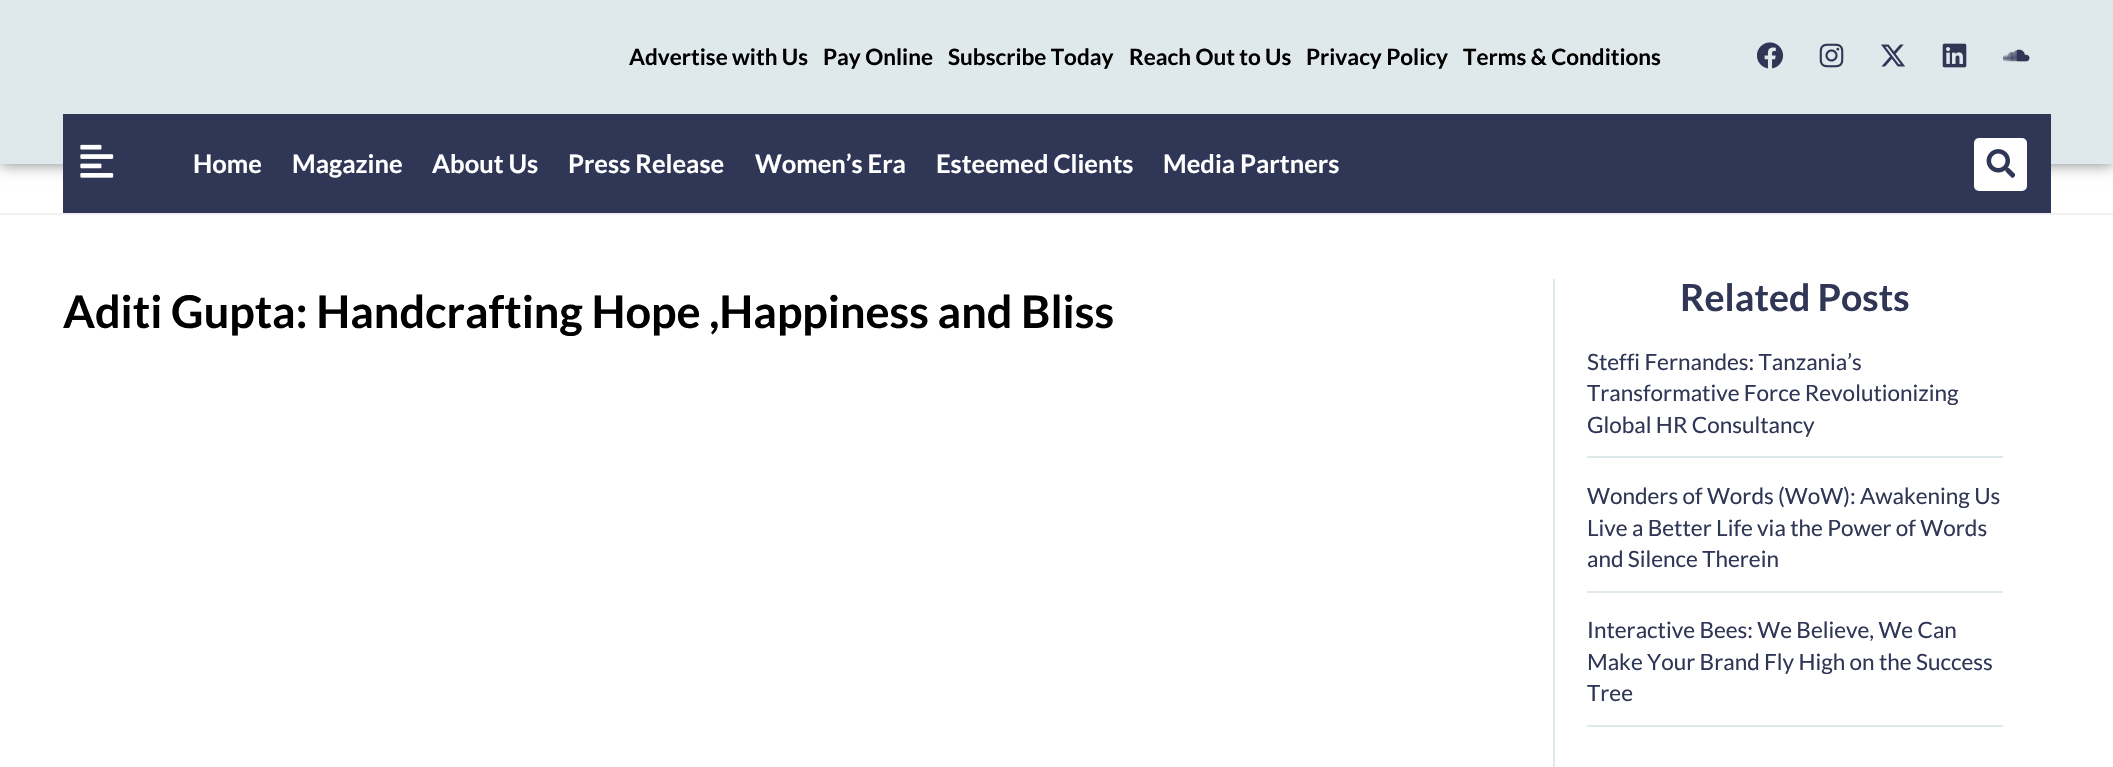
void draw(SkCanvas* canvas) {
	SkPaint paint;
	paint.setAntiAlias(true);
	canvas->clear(0xffffffff);
	paint.setColor(0xfff1f1f1);
	canvas->drawRect(SkRect::MakeXYWH(0, 213, 2113, 2), paint);
	paint.setColor(0x80000000);
	paint.setMaskFilter(SkMaskFilter::MakeBlur(kNormal_SkBlurStyle, 7.5));
	canvas->drawRect(SkRect::MakeXYWH(0, 0, 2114, 164), paint);
	paint.setMaskFilter(nullptr);
	paint.setColor(0xffdfe9eb);
	canvas->drawRect(SkRect::MakeXYWH(0, 0, 2113, 164), paint);
	SkFont f1(fontMgr->matchFamilyStyle("Lato", SkFontStyle::Bold()), 22.5);
	f1.setSubpixel(true);
	paint.setColor(0xff000000);
	canvas->drawString("Advertise with Us", 629, 65, f1, paint);
	canvas->drawString("Pay Online", 823, 65, f1, paint);
	canvas->drawString("Subscribe Today", 948, 65, f1, paint);
	canvas->drawString("Reach Out to Us", 1129, 65, f1, paint);
	canvas->drawString("Privacy Policy", 1306, 65, f1, paint);
	canvas->drawString("Terms & Conditions", 1463, 65, f1, paint);
	canvas->drawImageRect(SkImages::DeferredFromEncodedData(SkData::MakeFromFileName("img1.png")), SkRect::MakeXYWH(1757, 42, 27, 27), SkSamplingOptions());
	canvas->drawImageRect(SkImages::DeferredFromEncodedData(SkData::MakeFromFileName("img2.png")), SkRect::MakeXYWH(1819, 43, 25, 25), SkSamplingOptions());
	canvas->drawImageRect(SkImages::DeferredFromEncodedData(SkData::MakeFromFileName("img3.png")), SkRect::MakeXYWH(1881, 44, 24, 23), SkSamplingOptions());
	canvas->drawImageRect(SkImages::DeferredFromEncodedData(SkData::MakeFromFileName("img4.png")), SkRect::MakeXYWH(1942, 43, 25, 25), SkSamplingOptions());
	canvas->drawImageRect(SkImages::DeferredFromEncodedData(SkData::MakeFromFileName("img5.png")), SkRect::MakeXYWH(2003, 49, 27, 13), SkSamplingOptions());
	paint.setColor(0xff303655);
	canvas->drawRect(SkRect::MakeXYWH(63, 114, 1988, 99), paint);
	canvas->drawImageRect(SkImages::DeferredFromEncodedData(SkData::MakeFromFileName("img6.png")), SkRect::MakeXYWH(80, 144, 34, 34), SkSamplingOptions());
	SkFont f2(fontMgr->matchFamilyStyle("Lato", SkFontStyle::Bold()), 25.5);
	f2.setSubpixel(true);
	paint.setColor(0xffffffff);
	canvas->drawString("Home", 193, 173, f2, paint);
	canvas->drawString("Magazine", 292, 173, f2, paint);
	canvas->drawString("About Us", 432, 173, f2, paint);
	canvas->drawString("Press Release", 568, 173, f2, paint);
	canvas->drawString("Women’s Era", 755, 173, f2, paint);
	canvas->drawString("Esteemed Clients", 936, 173, f2, paint);
	canvas->drawString("Media Partners", 1163, 173, f2, paint);
	canvas->drawRoundRect(SkRect::MakeXYWH(1974, 138, 53, 53), 5, 5, paint);
	canvas->drawImageRect(SkImages::DeferredFromEncodedData(SkData::MakeFromFileName("img7.png")), SkRect::MakeXYWH(1986, 149, 29, 29), SkSamplingOptions());
	paint.setColor(0xffdfe9eb);
	canvas->drawRect(SkRect::MakeXYWH(1553, 279, 2, 488), paint);
	SkFont f3(fontMgr->matchFamilyStyle("Lato", SkFontStyle::Bold()), 45);
	f3.setSubpixel(true);
	paint.setColor(0xff000000);
	canvas->drawString("Aditi Gupta: Handcrafting Hope ,Happiness and Bliss", 63, 328, f3, paint);
	SkFont f4(fontMgr->matchFamilyStyle("Lato", SkFontStyle::Bold()), 37.5);
	f4.setSubpixel(true);
	paint.setColor(0xff303655);
	canvas->drawString("Related Posts", 1680, 311, f4, paint);
	paint.setColor(0xffdfe9eb);
	canvas->drawRect(SkRect::MakeXYWH(1587, 456, 416, 2), paint);
	SkFont f5(fontMgr->matchFamilyStyle("Lato", SkFontStyle::Normal()), 22.5);
	f5.setSubpixel(true);
	paint.setColor(0xff303655);
	canvas->drawString("Steffi Fernandes: Tanzania’s", 1587, 370, f5, paint);
	canvas->drawString("Transformative Force Revolutionizing", 1587, 401, f5, paint);
	canvas->drawString("Global HR Consultancy", 1587, 433, f5, paint);
	paint.setColor(0xffdfe9eb);
	canvas->drawRect(SkRect::MakeXYWH(1587, 591, 416, 2), paint);
	paint.setColor(0xff303655);
	canvas->drawString("Wonders of Words (WoW): Awakening Us", 1587, 504, f5, paint);
	canvas->drawString("Live a Better Life via the Power of Words", 1587, 536, f5, paint);
	canvas->drawString("and Silence Therein", 1587, 567, f5, paint);
	paint.setColor(0xffdfe9eb);
	canvas->drawRect(SkRect::MakeXYWH(1587, 725, 416, 2), paint);
	paint.setColor(0xff303655);
	canvas->drawString("Interactive Bees: We Believe, We Can", 1587, 638, f5, paint);
	canvas->drawString("Make Your Brand Fly High on the Success", 1587, 670, f5, paint);
	canvas->drawString("Tree", 1587, 701, f5, paint);
}
